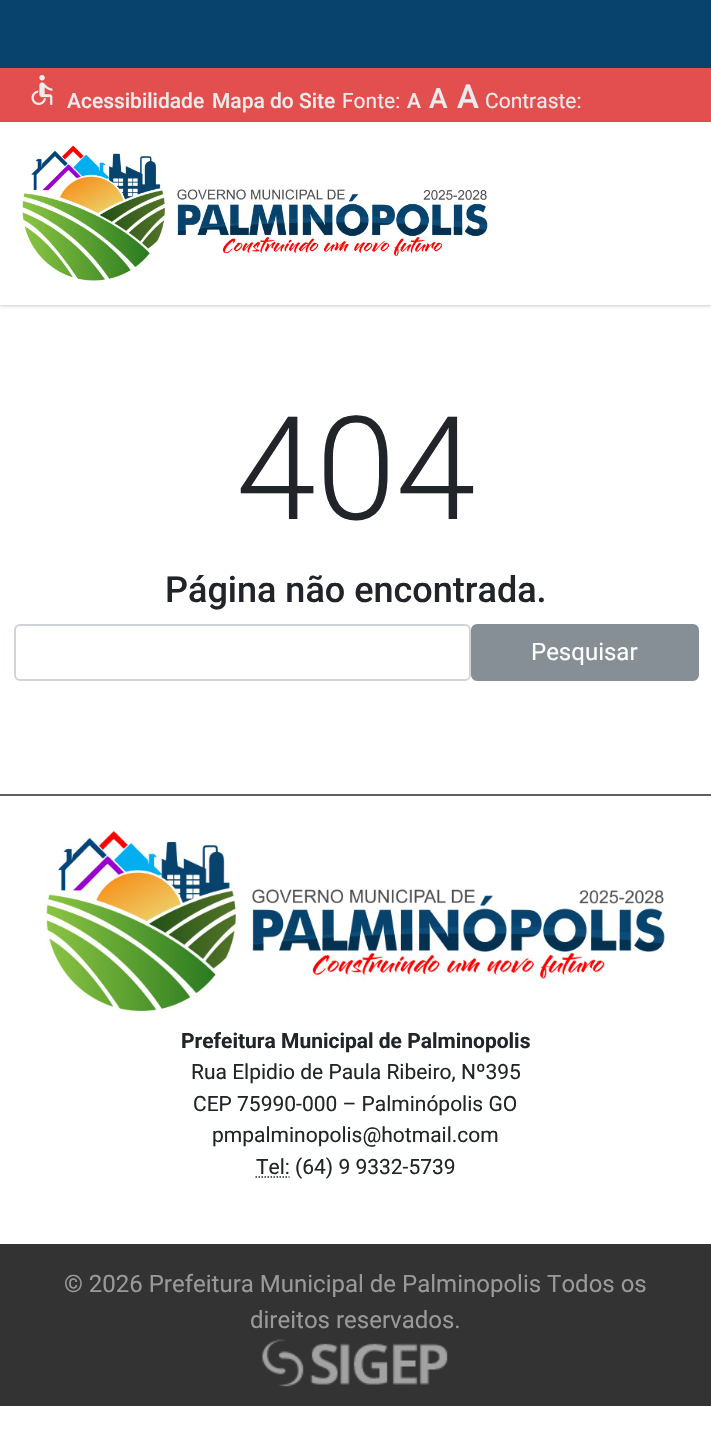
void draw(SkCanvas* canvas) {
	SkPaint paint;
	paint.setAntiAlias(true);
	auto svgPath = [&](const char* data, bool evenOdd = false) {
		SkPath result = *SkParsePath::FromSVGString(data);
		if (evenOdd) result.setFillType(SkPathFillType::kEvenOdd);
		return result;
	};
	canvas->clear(0xffffffff);
	paint.setColor(0xff08436e);
	canvas->drawRect(SkRect::MakeXYWH(0, 0, 711, 68), paint);
	paint.setColor(0xffe34e4e);
	canvas->drawRect(SkRect::MakeXYWH(0, 68, 711, 54), paint);
	canvas->drawImageRect(SkImages::DeferredFromEncodedData(SkData::MakeFromFileName("img1.png")), SkRect::MakeXYWH(31, 75, 22, 30), SkSamplingOptions());
	SkFont f1(fontMgr->matchFamilyStyle("Roboto", SkFontStyle(500, SkFontStyle::kNormal_Width, SkFontStyle::kUpright_Slant)), 21);
	f1.setSubpixel(true);
	paint.setColor(0xffececec);
	canvas->drawString("Acessibilidade", 67, 108, f1, paint);
	canvas->drawString("Mapa do Site", 212, 108, f1, paint);
	SkFont f2(fontMgr->matchFamilyStyle("Roboto", SkFontStyle::Normal()), 21);
	f2.setSubpixel(true);
	canvas->drawString("Fonte:", 342, 108, f2, paint);
	canvas->drawString("A", 407, 108, f1, paint);
	SkFont f3(fontMgr->matchFamilyStyle("Roboto", SkFontStyle(500, SkFontStyle::kNormal_Width, SkFontStyle::kUpright_Slant)), 28);
	f3.setSubpixel(true);
	canvas->drawString("A", 429, 108, f3, paint);
	SkFont f4(fontMgr->matchFamilyStyle("Roboto", SkFontStyle(500, SkFontStyle::kNormal_Width, SkFontStyle::kUpright_Slant)), 33);
	f4.setSubpixel(true);
	canvas->drawString("A", 457, 108, f4, paint);
	canvas->drawString("Contraste:", 485, 108, f2, paint);
	paint.setColor(0x33000000);
	paint.setMaskFilter(SkMaskFilter::MakeBlur(kNormal_SkBlurStyle, 1.5));
	canvas->drawRect(SkRect::MakeXYWH(0, 123, 711, 183), paint);
	paint.setMaskFilter(nullptr);
	paint.setColor(0xffffffff);
	canvas->drawRect(SkRect::MakeXYWH(0, 122, 711, 183), paint);
	canvas->drawImageRect(SkImages::DeferredFromEncodedData(SkData::MakeFromFileName("img2.png")), SkRect::MakeXYWH(22, 145, 466, 136), SkSamplingOptions());
	SkFont f5(fontMgr->matchFamilyStyle("Roboto", SkFontStyle(300, SkFontStyle::kNormal_Width, SkFontStyle::kUpright_Slant)), 144);
	f5.setSubpixel(true);
	paint.setColor(0xff212529);
	canvas->drawString("404", 236, 519, f5, paint);
	SkFont f6(fontMgr->matchFamilyStyle("Roboto", SkFontStyle(500, SkFontStyle::kNormal_Width, SkFontStyle::kUpright_Slant)), 36);
	f6.setSubpixel(true);
	canvas->drawString("Página não encontrada.", 165, 602, f6, paint);
	paint.setStroke(true);
	paint.setStrokeWidth(2);
	paint.setColor(0xffced4da);
	canvas->drawRoundRect(SkRect::MakeXYWH(15, 625, 455, 55), 5, 5, paint);
	paint.setStroke(false);
	paint.setColor(0xff868e96);
	canvas->drawRoundRect(SkRect::MakeXYWH(472, 625, 226, 55), 5, 5, paint);
	paint.setStroke(true);
	canvas->drawRoundRect(SkRect::MakeXYWH(472, 625, 226, 55), 5, 5, paint);
	SkFont f7(fontMgr->matchFamilyStyle("Roboto", SkFontStyle::Normal()), 24);
	f7.setSubpixel(true);
	paint.setStroke(false);
	paint.setColor(0xffffffff);
	canvas->drawString("Pesquisar", 531, 660, f7, paint);
	paint.setColor(0xff5f5f5f);
	canvas->drawRect(SkRect::MakeXYWH(0, 794, 711, 2), paint);
	canvas->drawImageRect(SkImages::DeferredFromEncodedData(SkData::MakeFromFileName("img3.png")), SkRect::MakeXYWH(46, 831, 619, 180), SkSamplingOptions());
	SkFont f8(fontMgr->matchFamilyStyle("Roboto", SkFontStyle::Bold()), 21);
	f8.setSubpixel(true);
	paint.setColor(0xff212529);
	canvas->drawString("Prefeitura Municipal de Palminopolis", 181, 1048, f8, paint);
	canvas->drawString("Rua Elpidio de Paula Ribeiro, Nº395", 191, 1079, f2, paint);
	canvas->drawString("CEP 75990-000 – Palminópolis GO", 193, 1111, f2, paint);
	canvas->drawString("pmpalminopolis@hotmail.com", 212, 1142, f2, paint);
	paint.setStroke(true);
	paint.setStrokeWidth(1.5);
	paint.setPathEffect(SkDashPathEffect::Make({{1.5f, 1.5f}}, 0));
	canvas->drawPath(svgPath("M255.5 1177H289.5"), paint);
	paint.setPathEffect(nullptr);
	paint.setStroke(false);
	canvas->drawString("Tel: (64) 9 9332-5739", 256, 1174, f2, paint);
	paint.setColor(0xff333333);
	canvas->drawRect(SkRect::MakeXYWH(0, 1244, 711, 162), paint);
	paint.setColor(0xff999999);
	canvas->drawString("© 2026 Prefeitura Municipal de Palminopolis Todos os", 64, 1292, f7, paint);
	canvas->drawString("direitos reservados.", 250, 1328, f7, paint);
	canvas->drawImageRect(SkImages::DeferredFromEncodedData(SkData::MakeFromFileName("img4.png")), SkRect::MakeXYWH(262, 1339, 186, 48), SkSamplingOptions());
}
